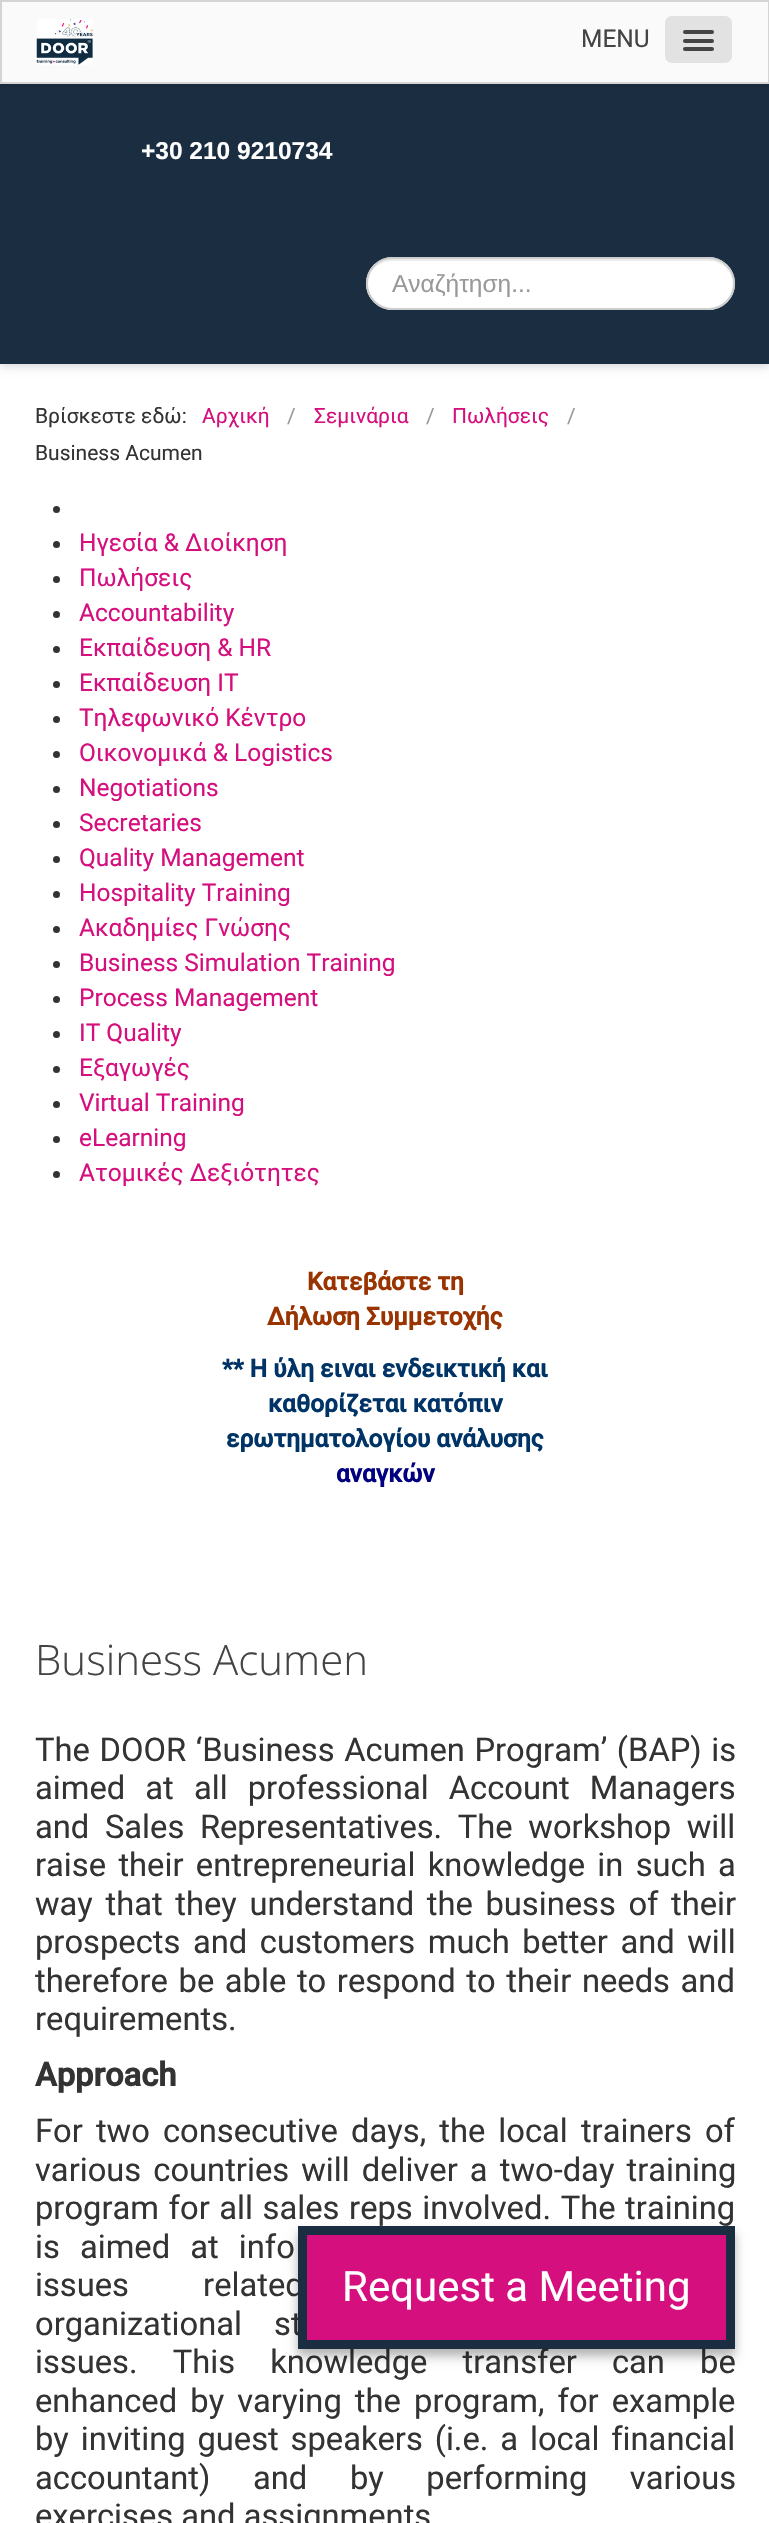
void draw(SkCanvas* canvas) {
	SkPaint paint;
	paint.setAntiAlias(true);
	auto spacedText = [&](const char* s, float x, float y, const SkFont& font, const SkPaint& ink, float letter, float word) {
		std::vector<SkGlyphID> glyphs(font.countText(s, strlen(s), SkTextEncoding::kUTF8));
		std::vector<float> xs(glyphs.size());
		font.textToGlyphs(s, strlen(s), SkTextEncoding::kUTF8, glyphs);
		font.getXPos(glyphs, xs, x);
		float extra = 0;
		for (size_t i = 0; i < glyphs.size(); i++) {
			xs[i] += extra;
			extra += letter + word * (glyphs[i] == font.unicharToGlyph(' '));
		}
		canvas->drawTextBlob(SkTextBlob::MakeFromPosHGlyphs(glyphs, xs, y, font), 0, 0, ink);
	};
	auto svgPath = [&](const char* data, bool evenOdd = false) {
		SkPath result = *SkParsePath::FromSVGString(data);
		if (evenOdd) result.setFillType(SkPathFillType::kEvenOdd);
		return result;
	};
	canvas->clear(0xffffffff);
	paint.setColor(0x2b000000);
	paint.setMaskFilter(SkMaskFilter::MakeBlur(kNormal_SkBlurStyle, 4.5));
	canvas->drawRect(SkRect::MakeXYWH(0, 86, 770, 280), paint);
	paint.setMaskFilter(nullptr);
	paint.setColor(0xff1b2d41);
	canvas->drawRect(SkRect::MakeXYWH(0, 84, 769, 280), paint);
	paint.setColor(0x12000000);
	paint.setMaskFilter(SkMaskFilter::MakeBlur(kNormal_SkBlurStyle, 3.5));
	canvas->drawRect(SkRect::MakeXYWH(0, 2, 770, 84), paint);
	paint.setMaskFilter(nullptr);
	paint.setColor(0xfffafafa);
	canvas->drawRect(SkRect::MakeXYWH(1, 1, 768, 82), paint);
	paint.setStroke(true);
	paint.setStrokeWidth(2);
	paint.setColor(0xffd4d4d4);
	canvas->drawRect(SkRect::MakeXYWH(1, 1, 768, 82), paint);
	canvas->drawImageRect(SkImages::DeferredFromEncodedData(SkData::MakeFromFileName("img1.png")), SkRect::MakeXYWH(36, 19, 57, 46), SkSamplingOptions());
	paint.setStroke(false);
	paint.setColor(0xffe2e2e2);
	canvas->drawRoundRect(SkRect::MakeXYWH(665, 16, 67, 47), 7, 7, paint);
	SkFont f1(fontMgr->matchFamilyStyle("Roboto", SkFontStyle::Normal()), 24.5);
	f1.setSubpixel(true);
	paint.setColor(0xff444444);
	canvas->drawString("MENU", 581, 47, f1, paint);
	canvas->drawRoundRect(SkRect::MakeXYWH(683, 30, 31, 4), 2, 2, paint);
	canvas->drawRoundRect(SkRect::MakeXYWH(683, 39, 31, 4), 2, 2, paint);
	canvas->drawRoundRect(SkRect::MakeXYWH(683, 47, 31, 4), 2, 2, paint);
	SkFont f2(fontMgr->matchFamilyStyle("Liberation Sans", SkFontStyle::Bold()), 24.5);
	f2.setSubpixel(true);
	paint.setColor(0xffffffff);
	canvas->drawString("+30 210 9210734", 141, 159, f2, paint);
	canvas->drawRoundRect(SkRect::MakeXYWH(366, 257, 369, 53), 26.5, 26.5, paint);
	paint.setColor(0xffececec);
	canvas->drawPath(svgPath("M392 261H709C722 261 733 272 733 284C733 271 722 259 708 259H392C379 259 368 271 368 284C368 272 378 261 392 261Z"), paint);
	paint.setStroke(true);
	paint.setColor(0xffcccccc);
	canvas->drawRoundRect(SkRect::MakeXYWH(367, 258, 367, 51), 25.5, 25.5, paint);
	SkFont f3(fontMgr->matchFamilyStyle("Liberation Sans", SkFontStyle::Normal()), 24.5);
	f3.setSubpixel(true);
	paint.setStroke(false);
	paint.setColor(0xff999999);
	canvas->drawString("Αναζήτηση...", 392, 292, f3, paint);
	SkFont f4(fontMgr->matchFamilyStyle("Roboto", SkFontStyle::Normal()), 21);
	f4.setSubpixel(true);
	paint.setColor(0xff333333);
	canvas->drawString("Βρίσκεστε εδώ:", 35, 423, f4, paint);
	paint.setColor(0xffd50f7e);
	canvas->drawString("Αρχική", 202, 423, f4, paint);
	paint.setColor(0xff999999);
	canvas->drawString("/", 287, 423, f4, paint);
	paint.setColor(0xffd50f7e);
	canvas->drawString("Σεμινάρια", 314, 423, f4, paint);
	paint.setColor(0xff999999);
	canvas->drawString("/", 426, 423, f4, paint);
	paint.setColor(0xffd50f7e);
	canvas->drawString("Πωλήσεις", 452, 423, f4, paint);
	paint.setColor(0xff999999);
	canvas->drawString("/", 567, 423, f4, paint);
	paint.setColor(0xff333333);
	canvas->drawString("Business Acumen", 35, 460, f4, paint);
	canvas->drawCircle(56.5, 509.5, 3.5, paint);
	canvas->drawCircle(56.5, 544.5, 3.5, paint);
	paint.setColor(0xffd50f7e);
	canvas->drawString("Ηγεσία & Διοίκηση", 79, 551, f1, paint);
	paint.setColor(0xff333333);
	canvas->drawCircle(56.5, 579.5, 3.5, paint);
	paint.setColor(0xffd50f7e);
	canvas->drawString("Πωλήσεις", 79, 586, f1, paint);
	paint.setColor(0xff333333);
	canvas->drawCircle(56.5, 614.5, 3.5, paint);
	paint.setColor(0xffd50f7e);
	canvas->drawString("Accountability", 79, 621, f1, paint);
	paint.setColor(0xff333333);
	canvas->drawCircle(56.5, 649.5, 3.5, paint);
	paint.setColor(0xffd50f7e);
	canvas->drawString("Εκπαίδευση & HR", 79, 656, f1, paint);
	paint.setColor(0xff333333);
	canvas->drawCircle(56.5, 684.5, 3.5, paint);
	paint.setColor(0xffd50f7e);
	canvas->drawString("Εκπαίδευση IT", 79, 691, f1, paint);
	paint.setColor(0xff333333);
	canvas->drawCircle(56.5, 719.5, 3.5, paint);
	paint.setColor(0xffd50f7e);
	canvas->drawString("Τηλεφωνικό Κέντρο", 79, 726, f1, paint);
	paint.setColor(0xff333333);
	canvas->drawCircle(56.5, 754.5, 3.5, paint);
	paint.setColor(0xffd50f7e);
	canvas->drawString("Οικονομικά & Logistics", 79, 761, f1, paint);
	paint.setColor(0xff333333);
	canvas->drawCircle(56.5, 789.5, 3.5, paint);
	paint.setColor(0xffd50f7e);
	canvas->drawString("Negotiations", 79, 796, f1, paint);
	paint.setColor(0xff333333);
	canvas->drawCircle(56.5, 824.5, 3.5, paint);
	paint.setColor(0xffd50f7e);
	canvas->drawString("Secretaries", 79, 831, f1, paint);
	paint.setColor(0xff333333);
	canvas->drawCircle(56.5, 859.5, 3.5, paint);
	paint.setColor(0xffd50f7e);
	canvas->drawString("Quality Management", 79, 866, f1, paint);
	paint.setColor(0xff333333);
	canvas->drawCircle(56.5, 894.5, 3.5, paint);
	paint.setColor(0xffd50f7e);
	canvas->drawString("Hospitality Training", 79, 901, f1, paint);
	paint.setColor(0xff333333);
	canvas->drawCircle(56.5, 929.5, 3.5, paint);
	paint.setColor(0xffd50f7e);
	canvas->drawString("Ακαδημίες Γνώσης", 79, 936, f1, paint);
	paint.setColor(0xff333333);
	canvas->drawCircle(56.5, 964.5, 3.5, paint);
	paint.setColor(0xffd50f7e);
	canvas->drawString("Business Simulation Training", 79, 971, f1, paint);
	paint.setColor(0xff333333);
	canvas->drawCircle(56.5, 999.5, 3.5, paint);
	paint.setColor(0xffd50f7e);
	canvas->drawString("Process Management", 79, 1006, f1, paint);
	paint.setColor(0xff333333);
	canvas->drawCircle(56.5, 1034.5, 3.5, paint);
	paint.setColor(0xffd50f7e);
	canvas->drawString("IT Quality", 79, 1041, f1, paint);
	paint.setColor(0xff333333);
	canvas->drawCircle(56.5, 1069.5, 3.5, paint);
	paint.setColor(0xffd50f7e);
	canvas->drawString("Εξαγωγές", 79, 1076, f1, paint);
	paint.setColor(0xff333333);
	canvas->drawCircle(56.5, 1104.5, 3.5, paint);
	paint.setColor(0xffd50f7e);
	canvas->drawString("Virtual Training", 79, 1111, f1, paint);
	paint.setColor(0xff333333);
	canvas->drawCircle(56.5, 1139.5, 3.5, paint);
	paint.setColor(0xffd50f7e);
	canvas->drawString("eLearning", 79, 1146, f1, paint);
	paint.setColor(0xff333333);
	canvas->drawCircle(56.5, 1174.5, 3.5, paint);
	paint.setColor(0xffd50f7e);
	canvas->drawString("Ατομικές Δεξιότητες", 79, 1181, f1, paint);
	SkFont f5(fontMgr->matchFamilyStyle("Roboto", SkFontStyle::Bold()), 24.5);
	f5.setSubpixel(true);
	paint.setColor(0xff993300);
	canvas->drawString("Κατεβάστε τη", 307, 1290, f5, paint);
	canvas->drawString("Δήλωση Συμμετοχής", 267, 1325, f5, paint);
	paint.setColor(0xff003366);
	canvas->drawString("** Η ύλη ειναι ενδεικτική και", 222, 1377, f5, paint);
	canvas->drawString("καθορίζεται κατόπιν", 268, 1412, f5, paint);
	canvas->drawString("ερωτηματολογίου ανάλυσης", 226, 1447, f5, paint);
	paint.setColor(0xff000080);
	canvas->drawString("αναγκών", 336, 1482, f5, paint);
	SkFont f6(fontMgr->matchFamilyStyle("Open Sans", SkFontStyle(300, SkFontStyle::kNormal_Width, SkFontStyle::kUpright_Slant)), 42);
	f6.setSubpixel(true);
	paint.setColor(0xff444444);
	canvas->drawString("Business Acumen", 35, 1675, f6, paint);
	SkFont f7(fontMgr->matchFamilyStyle("Roboto", SkFontStyle::Normal()), 32.7);
	f7.setSubpixel(true);
	paint.setColor(0xff333333);
	spacedText("The DOOR ‘Business Acumen Program’ (BAP) is", 35, 1761, f7, paint, 0, 1.5);
	spacedText("aimed at all professional Account Managers", 35, 1799, f7, paint, 0, 12);
	spacedText("and Sales Representatives. The workshop will", 35, 1838, f7, paint, 0, 7.5);
	spacedText("raise their entrepreneurial knowledge in such a", 35, 1876, f7, paint, 0, 4.25);
	spacedText("way that they understand the business of their", 35, 1915, f7, paint, 0, 4.5);
	spacedText("prospects and customers much better and will", 35, 1953, f7, paint, 0, 4.5);
	spacedText("therefore be able to respond to their needs and", 35, 1992, f7, paint, 0, 2.5);
	canvas->drawString("requirements.", 35, 2030, f7, paint);
	SkFont f8(fontMgr->matchFamilyStyle("Roboto", SkFontStyle::Bold()), 32.7);
	f8.setSubpixel(true);
	canvas->drawString("Approach", 35, 2086, f8, paint);
	spacedText("For two consecutive days, the local trainers of", 35, 2142, f7, paint, 0, 5);
	spacedText("various countries will deliver a two-day training", 35, 2181, f7, paint, 0, 4);
	spacedText("program for all sales reps involved. The training", 35, 2219, f7, paint, 0, 1.5);
	spacedText("is aimed at info", 35, 2258, f7, paint, 0, 12);
	spacedText("issues related", 35, 2296, f7, paint, 0, 66);
	spacedText("organizational st", 35, 2335, f7, paint, 0, 24);
	spacedText("issues. This knowledge transfer can be", 35, 2373, f7, paint, 0, 27);
	spacedText("enhanced by varying the program, for example", 35, 2412, f7, paint, 0, 5);
	spacedText("by inviting guest speakers (i.e. a local financial", 35, 2450, f7, paint, 0, 3.75);
	spacedText("accountant) and by performing various", 35, 2489, f7, paint, 0, 34.5);
	canvas->drawString("exercises and assignments", 35, 2527, f7, paint);
	paint.setColor(0x4d000000);
	paint.setMaskFilter(SkMaskFilter::MakeBlur(kNormal_SkBlurStyle, 5));
	canvas->drawRect(SkRect::MakeXYWH(298, 2233, 437, 123), paint);
	paint.setMaskFilter(nullptr);
	paint.setColor(0xffd50f7e);
	canvas->drawRect(SkRect::MakeXYWH(302.5, 2230.5, 428, 114), paint);
	paint.setStroke(true);
	paint.setStrokeWidth(9);
	paint.setColor(0xff1b2d41);
	canvas->drawRect(SkRect::MakeXYWH(302.5, 2230.5, 428, 114), paint);
	SkFont f9(fontMgr->matchFamilyStyle("Roboto", SkFontStyle::Normal()), 42);
	f9.setSubpixel(true);
	paint.setStroke(false);
	paint.setColor(0xffffffff);
	canvas->drawString("Request a Meeting", 342, 2301, f9, paint);
}
